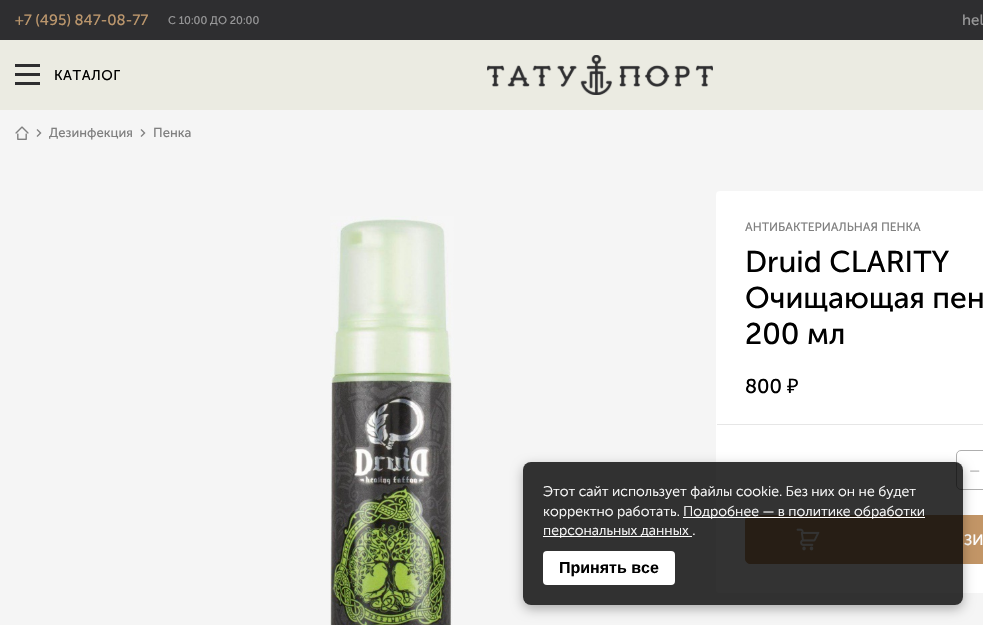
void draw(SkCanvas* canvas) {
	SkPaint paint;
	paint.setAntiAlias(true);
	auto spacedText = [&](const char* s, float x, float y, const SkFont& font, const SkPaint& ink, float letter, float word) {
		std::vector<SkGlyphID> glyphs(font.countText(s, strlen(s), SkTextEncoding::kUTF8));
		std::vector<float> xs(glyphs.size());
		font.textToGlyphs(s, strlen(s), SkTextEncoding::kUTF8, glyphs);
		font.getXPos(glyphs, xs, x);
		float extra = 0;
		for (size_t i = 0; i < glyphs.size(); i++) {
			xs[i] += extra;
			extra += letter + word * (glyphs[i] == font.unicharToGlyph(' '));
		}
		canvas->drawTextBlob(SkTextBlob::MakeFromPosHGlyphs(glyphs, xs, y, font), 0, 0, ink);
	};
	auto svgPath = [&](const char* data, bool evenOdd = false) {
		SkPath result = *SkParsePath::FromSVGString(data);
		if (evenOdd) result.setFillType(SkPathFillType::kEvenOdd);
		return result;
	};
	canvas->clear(0xfff5f5f5);
	paint.setColor(0xff2e2e30);
	canvas->drawRect(SkRect::MakeXYWH(0, 0, 983, 40), paint);
	SkFont f1(fontMgr->matchFamilyStyle("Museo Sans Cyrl", SkFontStyle::Normal()), 15);
	f1.setSubpixel(true);
	paint.setColor(0xffbb966c);
	canvas->drawString("+7 (495) 847-08-77", 15, 25, f1, paint);
	SkFont f2(fontMgr->matchFamilyStyle("Museo Sans Cyrl", SkFontStyle::Normal()), 11);
	f2.setSubpixel(true);
	paint.setColor(0xff979798);
	canvas->drawString("С 10:00 ДО 20:00", 168, 24, f2, paint);
	canvas->drawString("hel", 962, 25, f1, paint);
	paint.setColor(0xffebebe2);
	canvas->drawRect(SkRect::MakeXYWH(0, 40, 983, 70), paint);
	paint.setColor(0xff2e2e30);
	canvas->drawRect(SkRect::MakeXYWH(15, 64, 25, 3), paint);
	canvas->drawRect(SkRect::MakeXYWH(15, 73, 25, 3), paint);
	canvas->drawRect(SkRect::MakeXYWH(15, 82, 25, 3), paint);
	SkFont f3(fontMgr->matchFamilyStyle("Museo Sans Cyrl", SkFontStyle::Normal()), 14);
	f3.setSubpixel(true);
	paint.setColor(0xff000000);
	spacedText("КАТАЛОГ", 54, 80, f3, paint, 0.5, 0);
	canvas->drawImageRect(SkImages::DeferredFromEncodedData(SkData::MakeFromFileName("img1.png")), SkRect::MakeXYWH(487, 55, 226, 40), SkSamplingOptions());
	canvas->drawImageRect(SkImages::DeferredFromEncodedData(SkData::MakeFromFileName("img2.png")), SkRect::MakeXYWH(15, 126, 14, 14), SkSamplingOptions());
	canvas->drawImageRect(SkImages::DeferredFromEncodedData(SkData::MakeFromFileName("img3.png")), SkRect::MakeXYWH(36, 129, 6, 8), SkSamplingOptions());
	SkFont f4(fontMgr->matchFamilyStyle("Museo Sans Cyrl", SkFontStyle::Normal()), 13);
	f4.setSubpixel(true);
	paint.setColor(0xff808080);
	canvas->drawString("Дезинфекция", 49, 137, f4, paint);
	canvas->drawImageRect(SkImages::DeferredFromEncodedData(SkData::MakeFromFileName("img3.png")), SkRect::MakeXYWH(140, 129, 6, 8), SkSamplingOptions());
	canvas->drawString("Пенка", 153, 137, f4, paint);
	canvas->drawImageRect(SkImages::DeferredFromEncodedData(SkData::MakeFromFileName("img4.png")), SkRect::MakeXYWH(330, 216, 124, 409), SkSamplingOptions());
	paint.setColor(0xffffffff);
	canvas->drawRoundRect(SkRect::MakeXYWH(716, 191, 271, 402), 4, 4, paint);
	SkFont f5(fontMgr->matchFamilyStyle("Museo Sans Cyrl", SkFontStyle::Normal()), 12);
	f5.setSubpixel(true);
	paint.setColor(0xff808080);
	canvas->drawString("АНТИБАКТЕРИАЛЬНАЯ ПЕНКА", 745, 231, f5, paint);
	SkFont f6(fontMgr->matchFamilyStyle("Museo Sans Cyrl", SkFontStyle::Normal()), 30);
	f6.setSubpixel(true);
	paint.setColor(0xff000000);
	canvas->drawString("Druid CLARITY", 745, 272, f6, paint);
	canvas->drawString("Очищающая пен", 745, 308, f6, paint);
	canvas->drawString("200 мл", 745, 344, f6, paint);
	SkFont f7(fontMgr->matchFamilyStyle("Museo Sans Cyrl", SkFontStyle::Normal()), 20);
	f7.setSubpixel(true);
	canvas->drawString("800", 745, 393, f7, paint);
	SkFont f8(fontMgr->matchFamilyStyle("Noto Sans", SkFontStyle::Normal()), 20);
	f8.setSubpixel(true);
	canvas->drawString("₽", 787, 393, f8, paint);
	paint.setColor(0xffe6e6e6);
	canvas->drawRect(SkRect::MakeXYWH(717, 424, 266, 1), paint);
	paint.setStroke(true);
	paint.setStrokeWidth(1);
	paint.setColor(0xffaeaeae);
	canvas->drawRoundRect(SkRect::MakeXYWH(956.5, 450.5, 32, 39), 4.5, 4.5, paint);
	SkFont f9(fontMgr->matchFamilyStyle("Museo Sans Cyrl", SkFontStyle::Normal()), 17);
	f9.setSubpixel(true);
	paint.setStroke(false);
	paint.setColor(0xffc0c0c0);
	canvas->drawString("–", 969, 476, f9, paint);
	paint.setColor(0xffc29566);
	canvas->drawRoundRect(SkRect::MakeXYWH(745.5, 515.5, 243, 48), 4.5, 4.5, paint);
	paint.setStroke(true);
	paint.setColor(0xffc19566);
	canvas->drawRoundRect(SkRect::MakeXYWH(745.5, 515.5, 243, 48), 4.5, 4.5, paint);
	canvas->drawImageRect(SkImages::DeferredFromEncodedData(SkData::MakeFromFileName("img5.png")), SkRect::MakeXYWH(796, 528, 24, 23), SkSamplingOptions());
	paint.setStroke(false);
	paint.setColor(0xffffffff);
	canvas->drawString("ЗИ", 964, 545, f1, paint);
	canvas->save();
	canvas->clipPath(svgPath("M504 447H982V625H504ZM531 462H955C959.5 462 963 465.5 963 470V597C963 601.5 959.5 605 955 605H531C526.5 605 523 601.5 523 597V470C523 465.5 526.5 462 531 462Z", true), true);
	paint.setColor(0x4d000000);
	paint.setMaskFilter(SkMaskFilter::MakeBlur(kNormal_SkBlurStyle, 6));
	canvas->drawRoundRect(SkRect::MakeXYWH(523, 466, 440, 143), 8, 8, paint);
	paint.setMaskFilter(nullptr);
	canvas->restore();
	paint.setColor(0xcc000000);
	canvas->drawRoundRect(SkRect::MakeXYWH(523, 462, 440, 143), 8, 8, paint);
	SkFont f10(fontMgr->matchFamilyStyle("Museo Sans Cyrl", SkFontStyle(300, SkFontStyle::kNormal_Width, SkFontStyle::kUpright_Slant)), 14);
	f10.setSubpixel(true);
	paint.setColor(0xffffffff);
	canvas->drawString("Этот сайт использует файлы cookie. Без них он не будет", 543, 496, f10, paint);
	canvas->drawString("корректно работать.", 543, 516, f10, paint);
	canvas->drawRect(SkRect::MakeXYWH(683, 517, 242, 1), paint);
	canvas->drawString("Подробнее — в политике обработки", 683, 516, f10, paint);
	canvas->drawRect(SkRect::MakeXYWH(543, 536, 149, 1), paint);
	canvas->drawString("персональных данных .", 543, 535, f10, paint);
	canvas->drawRoundRect(SkRect::MakeXYWH(543, 551, 132, 34), 4, 4, paint);
	SkFont f11(fontMgr->matchFamilyStyle("Liberation Sans", SkFontStyle::Bold()), 16);
	f11.setSubpixel(true);
	paint.setColor(0xff000000);
	canvas->drawString("Принять все", 559, 573, f11, paint);
}
